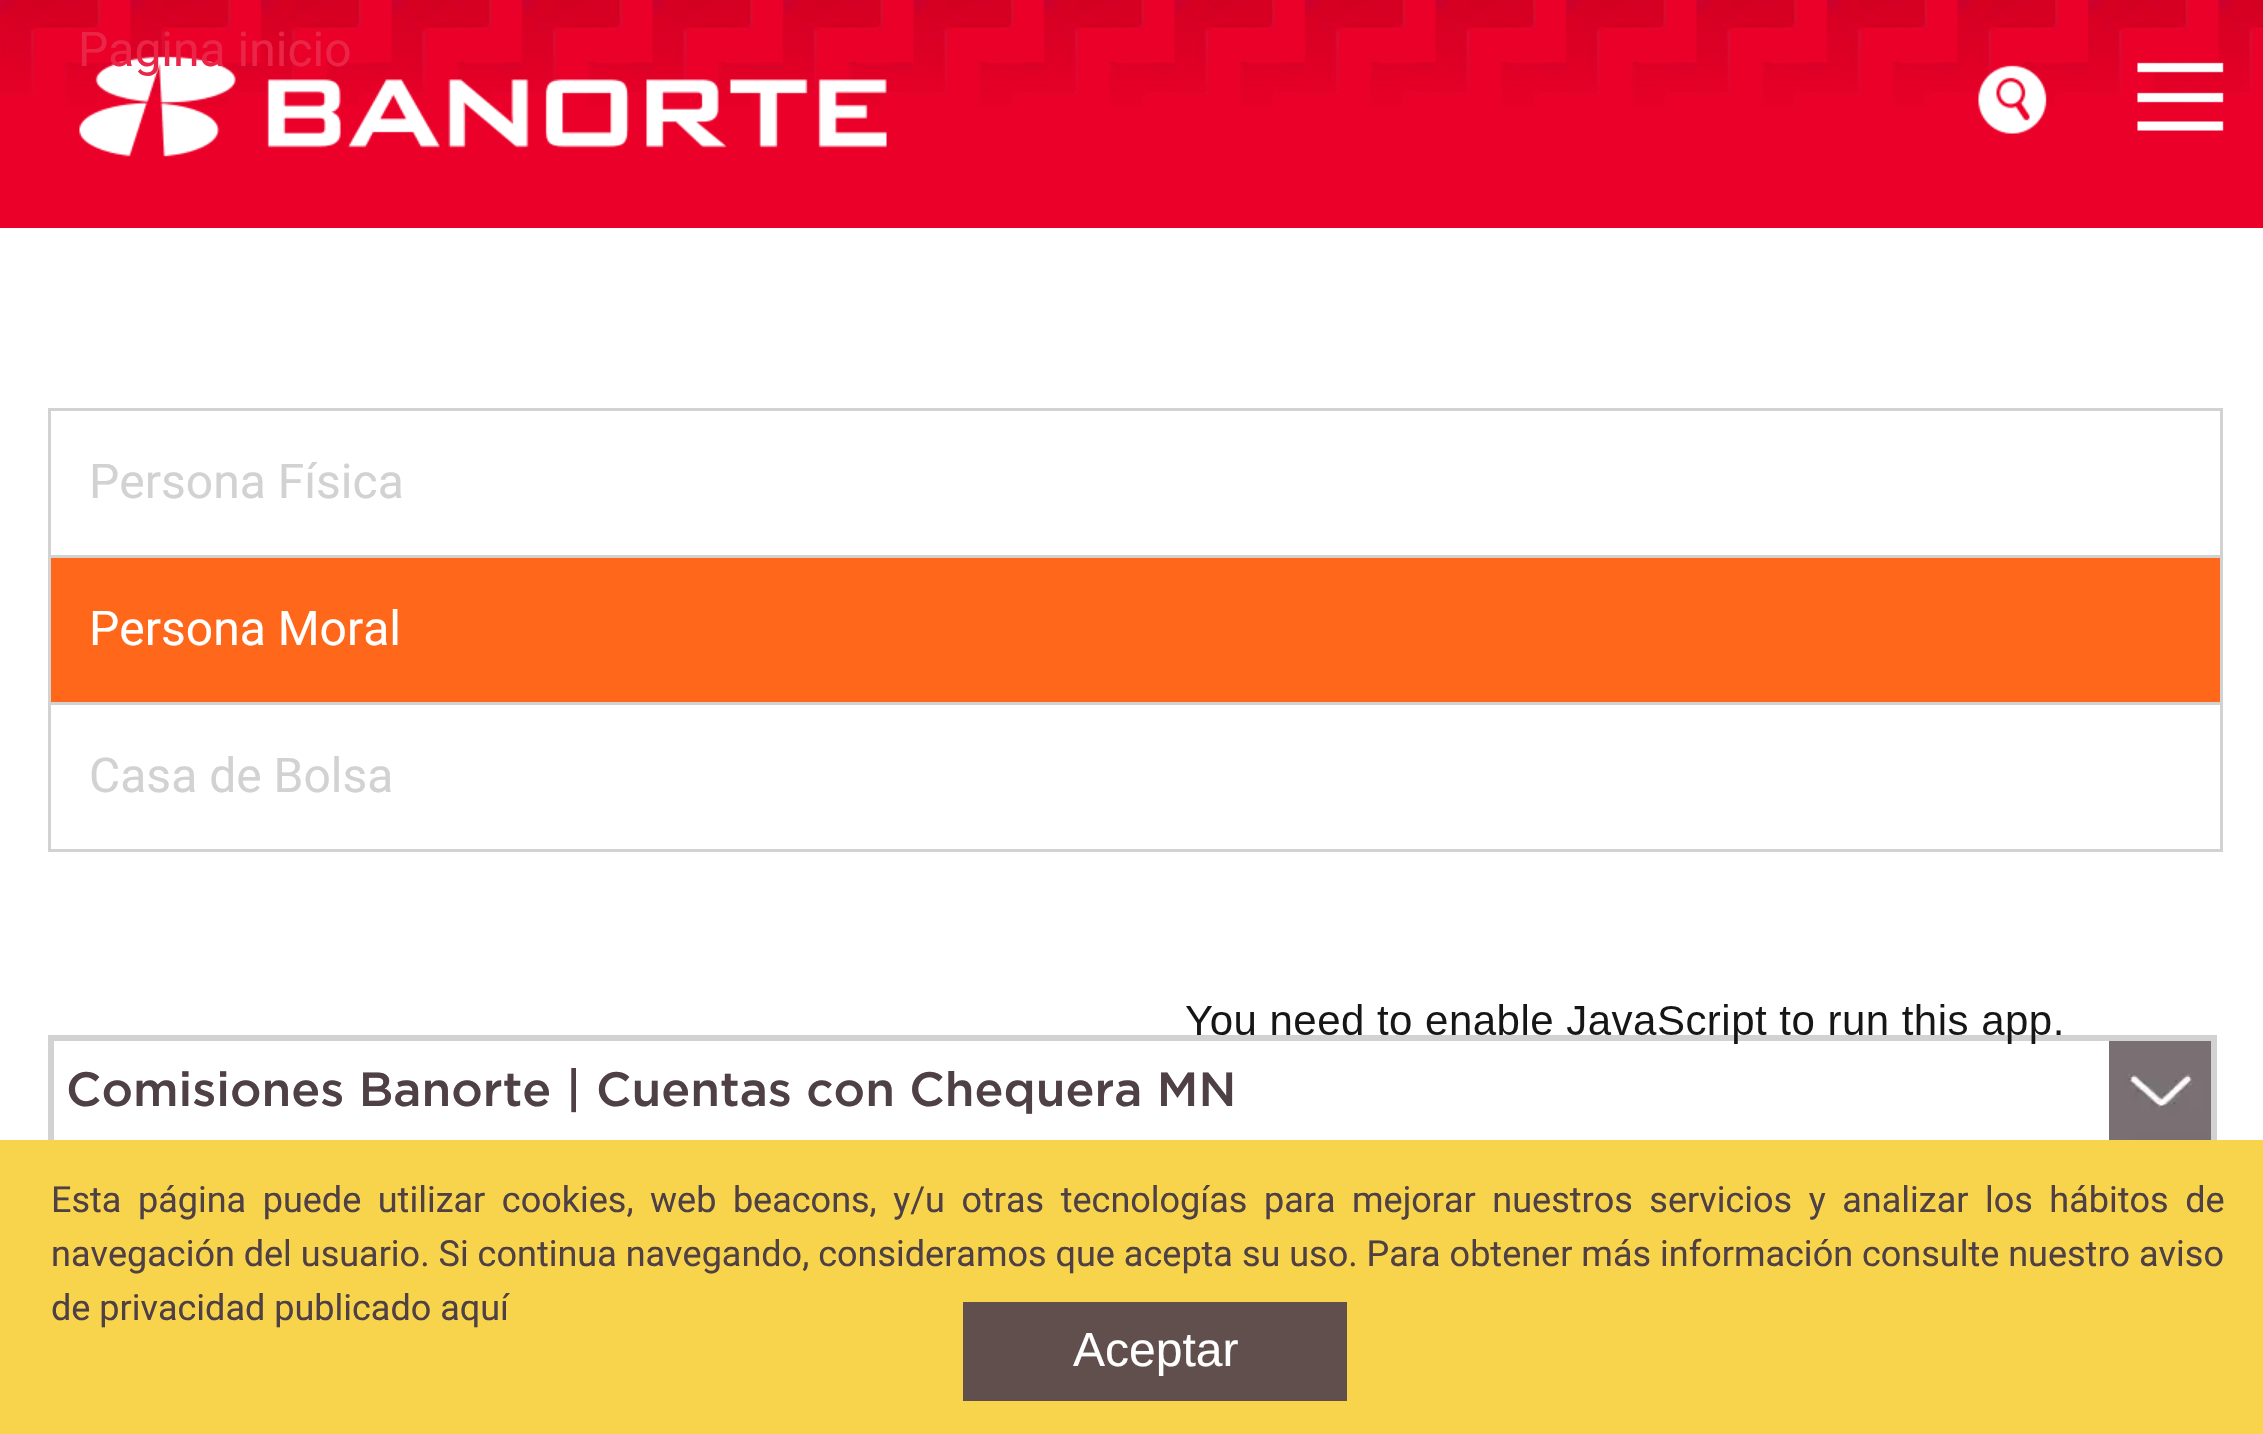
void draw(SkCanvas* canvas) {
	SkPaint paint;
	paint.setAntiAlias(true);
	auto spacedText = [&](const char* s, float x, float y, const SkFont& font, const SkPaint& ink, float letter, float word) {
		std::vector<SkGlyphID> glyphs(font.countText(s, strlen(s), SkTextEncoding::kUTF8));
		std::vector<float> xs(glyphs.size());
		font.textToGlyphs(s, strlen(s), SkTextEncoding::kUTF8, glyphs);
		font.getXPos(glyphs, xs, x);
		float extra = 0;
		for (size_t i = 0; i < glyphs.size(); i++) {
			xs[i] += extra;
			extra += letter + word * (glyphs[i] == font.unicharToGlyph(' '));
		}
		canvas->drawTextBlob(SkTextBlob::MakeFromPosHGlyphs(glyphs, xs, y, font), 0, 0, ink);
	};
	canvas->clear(0xffffffff);
	paint.setColor(0xffeb0029);
	canvas->drawRect(SkRect::MakeXYWH(0, 0, 2263, 228), paint);
	canvas->drawImageRect(SkImages::DeferredFromEncodedData(SkData::MakeFromFileName("img1.png")), SkRect::MakeXYWH(0, 0, 2263, 107), SkSamplingOptions());
	canvas->drawImageRect(SkImages::DeferredFromEncodedData(SkData::MakeFromFileName("img2.png")), SkRect::MakeXYWH(79, 56, 808, 101), SkSamplingOptions());
	SkFont f1(fontMgr->matchFamilyStyle("Roboto", SkFontStyle::Normal()), 48);
	f1.setSubpixel(true);
	paint.setColor(0xffeb2547);
	canvas->drawString("Pagina inicio", 78, 66, f1, paint);
	canvas->drawImageRect(SkImages::DeferredFromEncodedData(SkData::MakeFromFileName("img3.png")), SkRect::MakeXYWH(1978, 65, 69, 69), SkSamplingOptions());
	canvas->drawImageRect(SkImages::DeferredFromEncodedData(SkData::MakeFromFileName("img4.png")), SkRect::MakeXYWH(2137, 62, 87, 69), SkSamplingOptions());
	paint.setStroke(true);
	paint.setStrokeWidth(3);
	paint.setColor(0xffd2d2d2);
	canvas->drawRect(SkRect::MakeXYWH(49.5, 409.5, 2172, 147), paint);
	paint.setStroke(false);
	canvas->drawString("Persona Física", 89, 498, f1, paint);
	paint.setColor(0xffff671b);
	canvas->drawRect(SkRect::MakeXYWH(49.5, 556.5, 2172, 147), paint);
	paint.setStroke(true);
	paint.setColor(0xffd2d2d2);
	canvas->drawRect(SkRect::MakeXYWH(49.5, 556.5, 2172, 147), paint);
	paint.setStroke(false);
	paint.setColor(0xffffffff);
	canvas->drawString("Persona Moral", 89, 645, f1, paint);
	paint.setStroke(true);
	paint.setColor(0xffd2d2d2);
	canvas->drawRect(SkRect::MakeXYWH(49.5, 703.5, 2172, 147), paint);
	paint.setStroke(false);
	canvas->drawString("Casa de Bolsa", 89, 792, f1, paint);
	canvas->drawImageRect(SkImages::DeferredFromEncodedData(SkData::MakeFromFileName("img5.png")), SkRect::MakeXYWH(2109, 1041, 102, 99), SkSamplingOptions());
	paint.setStroke(true);
	canvas->drawRect(SkRect::MakeXYWH(49.5, 1036.5, 2166, 108), paint);
	canvas->drawRect(SkRect::MakeXYWH(52.5, 1039.5, 2160, 102), paint);
	canvas->save();
	canvas->clipRect(SkRect::MakeXYWH(66, 1068, 2040, 48));
	SkFont f2(fontMgr->matchFamilyStyle("Gotham", SkFontStyle(500, SkFontStyle::kNormal_Width, SkFontStyle::kUpright_Slant)), 48);
	f2.setSubpixel(true);
	paint.setStroke(false);
	paint.setColor(0xff4e4044);
	canvas->drawString("Comisiones Banorte | Cuentas con Chequera MN", 66, 1106, f2, paint);
	canvas->restore();
	canvas->drawImageRect(SkImages::DeferredFromEncodedData(SkData::MakeFromFileName("img6.png")), SkRect::MakeXYWH(1186, 1004, 875, 40), SkSamplingOptions());
	paint.setColor(0xfff8d44c);
	canvas->drawRect(SkRect::MakeXYWH(0, 1140, 2263, 294), paint);
	SkFont f3(fontMgr->matchFamilyStyle("Roboto", SkFontStyle::Normal()), 36);
	f3.setSubpixel(true);
	paint.setColor(0xff4e4044);
	spacedText("Esta página puede utilizar cookies, web beacons, y/u otras tecnologías para mejorar nuestros servicios y analizar los hábitos de", 51, 1212, f3, paint, 0, 7.6);
	canvas->drawString("navegación del usuario. Si continua navegando, consideramos que acepta su uso. Para obtener más información consulte nuestro aviso", 51, 1266, f3, paint);
	canvas->drawString("de privacidad publicado aquí", 51, 1320, f3, paint);
	paint.setColor(0xff614f4d);
	canvas->drawRect(SkRect::MakeXYWH(963, 1302, 384, 99), paint);
	SkFont f4(fontMgr->matchFamilyStyle("Liberation Sans", SkFontStyle::Normal()), 48);
	f4.setSubpixel(true);
	paint.setColor(0xffffffff);
	canvas->drawString("Aceptar", 1073, 1366, f4, paint);
}
